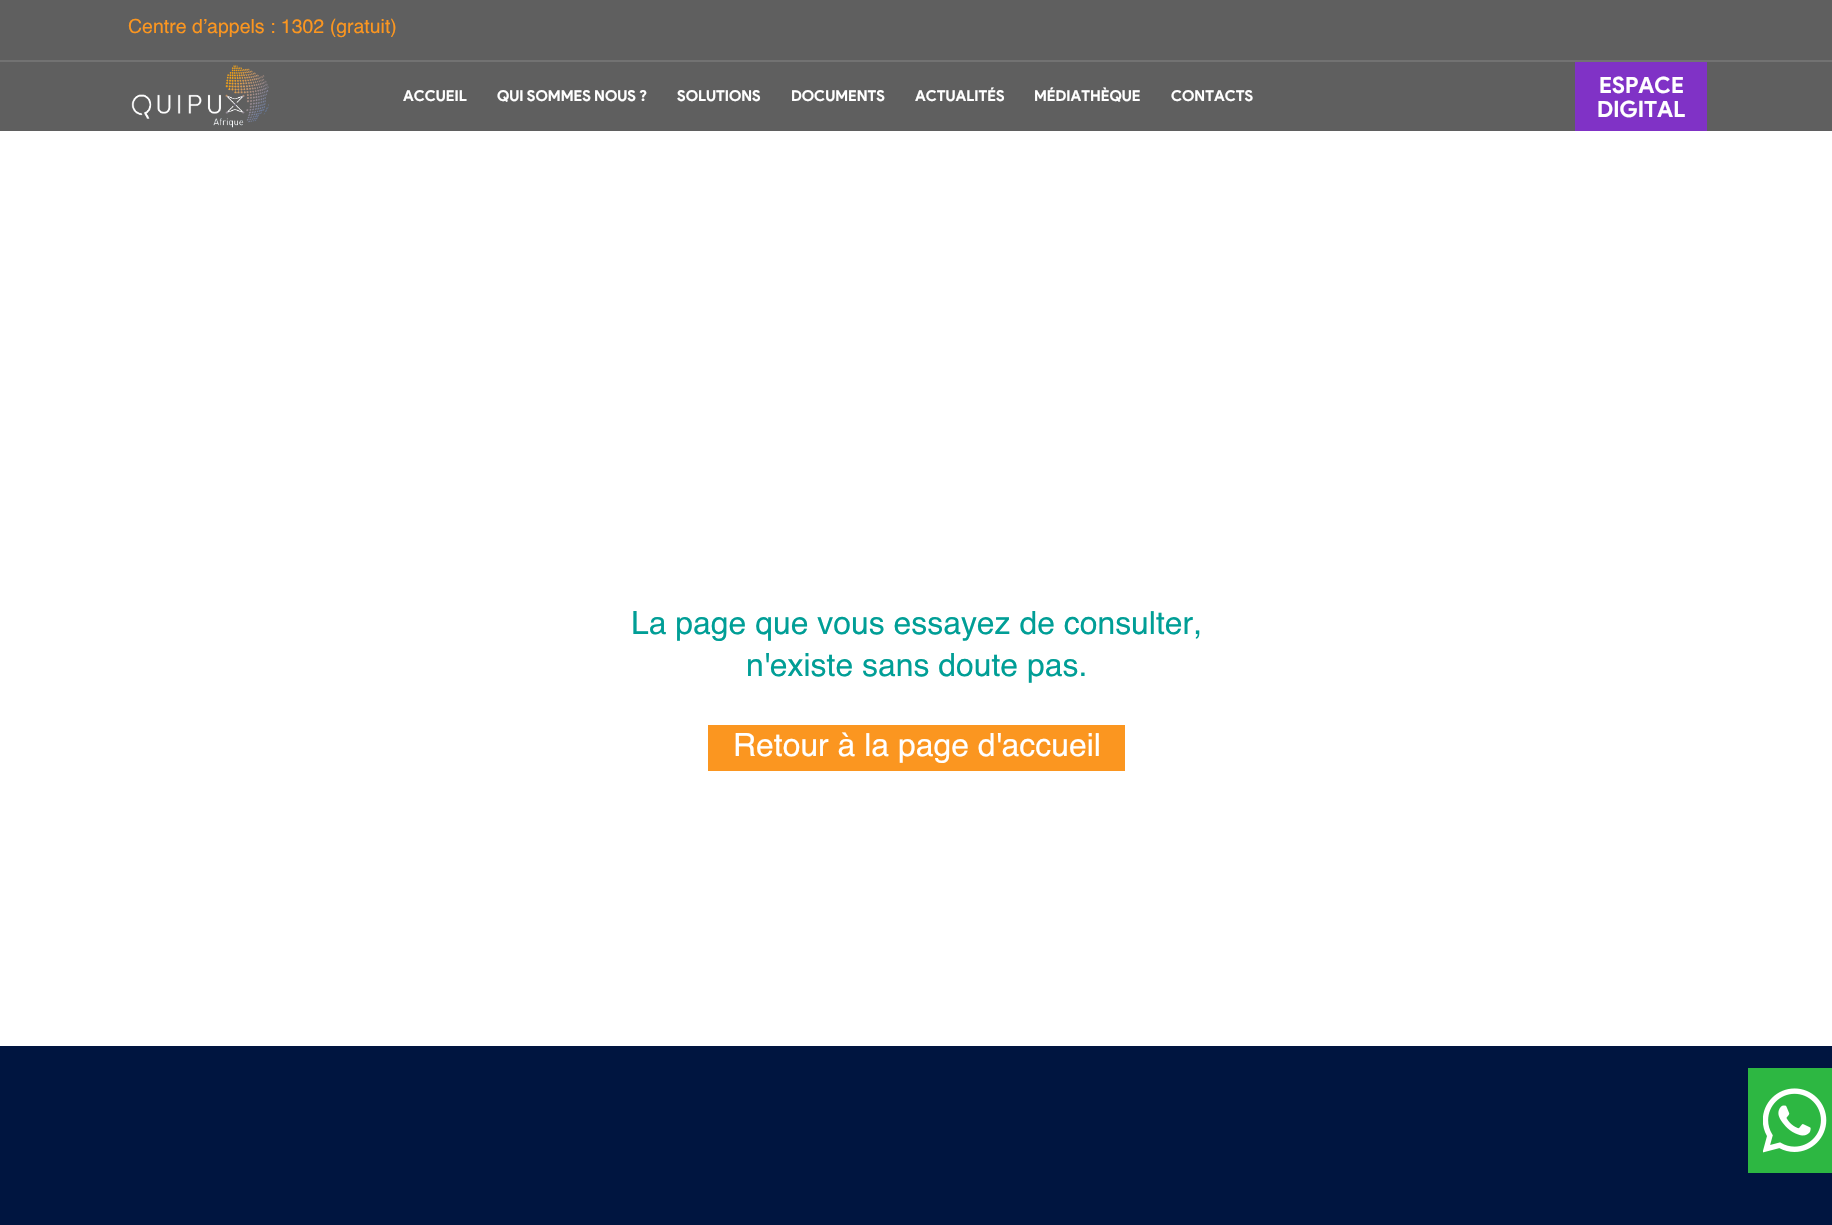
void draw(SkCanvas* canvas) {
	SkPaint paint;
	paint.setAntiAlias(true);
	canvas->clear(0xffffffff);
	paint.setColor(0xff5f5f5f);
	canvas->drawRect(SkRect::MakeXYWH(0, 0, 1832, 60), paint);
	paint.setColor(0xff727272);
	canvas->drawRect(SkRect::MakeXYWH(0, 60, 1832, 2), paint);
	SkFont f1(fontMgr->matchFamilyStyle("Helvetica", SkFontStyle::Normal()), 19.5);
	f1.setSubpixel(true);
	paint.setColor(0xfffb9620);
	canvas->drawString("Centre d’appels : 1302 (gratuit)", 128, 33, f1, paint);
	paint.setColor(0xff5f5f5f);
	canvas->drawRect(SkRect::MakeXYWH(0, 62, 1832, 69), paint);
	canvas->drawImageRect(SkImages::DeferredFromEncodedData(SkData::MakeFromFileName("img1.png")), SkRect::MakeXYWH(131, 65, 138, 63), SkSamplingOptions());
	SkFont f2(fontMgr->matchFamilyStyle("Product Sans", SkFontStyle::Bold()), 15);
	f2.setSubpixel(true);
	paint.setColor(0xffffffff);
	canvas->drawString("ACCUEIL", 403, 101, f2, paint);
	canvas->drawString("QUI SOMMES NOUS ?", 497, 101, f2, paint);
	canvas->drawString("SOLUTIONS", 677, 101, f2, paint);
	canvas->drawString("DOCUMENTS", 791, 101, f2, paint);
	canvas->drawString("ACTUALITÉS", 915, 101, f2, paint);
	canvas->drawString("MÉDIATHÈQUE", 1034, 101, f2, paint);
	canvas->drawString("CONTACTS", 1171, 101, f2, paint);
	paint.setColor(0xff8032c6);
	canvas->drawRect(SkRect::MakeXYWH(1575, 62, 132, 69), paint);
	SkFont f3(fontMgr->matchFamilyStyle("Product Sans", SkFontStyle::Bold()), 22.5);
	f3.setSubpixel(true);
	paint.setColor(0xffffffff);
	canvas->drawString("ESPACE", 1599, 93, f3, paint);
	canvas->drawString("DIGITAL", 1597, 117, f3, paint);
	SkFont f4(fontMgr->matchFamilyStyle("Helvetica", SkFontStyle::Normal()), 31.9);
	f4.setSubpixel(true);
	paint.setColor(0xff009e96);
	canvas->drawString("La page que vous essayez de consulter,", 631, 634, f4, paint);
	canvas->drawString("n'existe sans doute pas.", 746, 676, f4, paint);
	paint.setColor(0xfffb9620);
	canvas->drawRect(SkRect::MakeXYWH(708, 725, 417, 46), paint);
	paint.setColor(0xffffffff);
	canvas->drawString("Retour à la page d'accueil", 733, 756, f4, paint);
	paint.setColor(0xff001540);
	canvas->drawRect(SkRect::MakeXYWH(0, 1046, 1832, 179), paint);
	paint.setColor(0xff2db742);
	canvas->drawRect(SkRect::MakeXYWH(1748, 1068, 84, 105), paint);
	canvas->drawImageRect(SkImages::DeferredFromEncodedData(SkData::MakeFromFileName("img2.png")), SkRect::MakeXYWH(1763, 1088, 64, 65), SkSamplingOptions());
}
